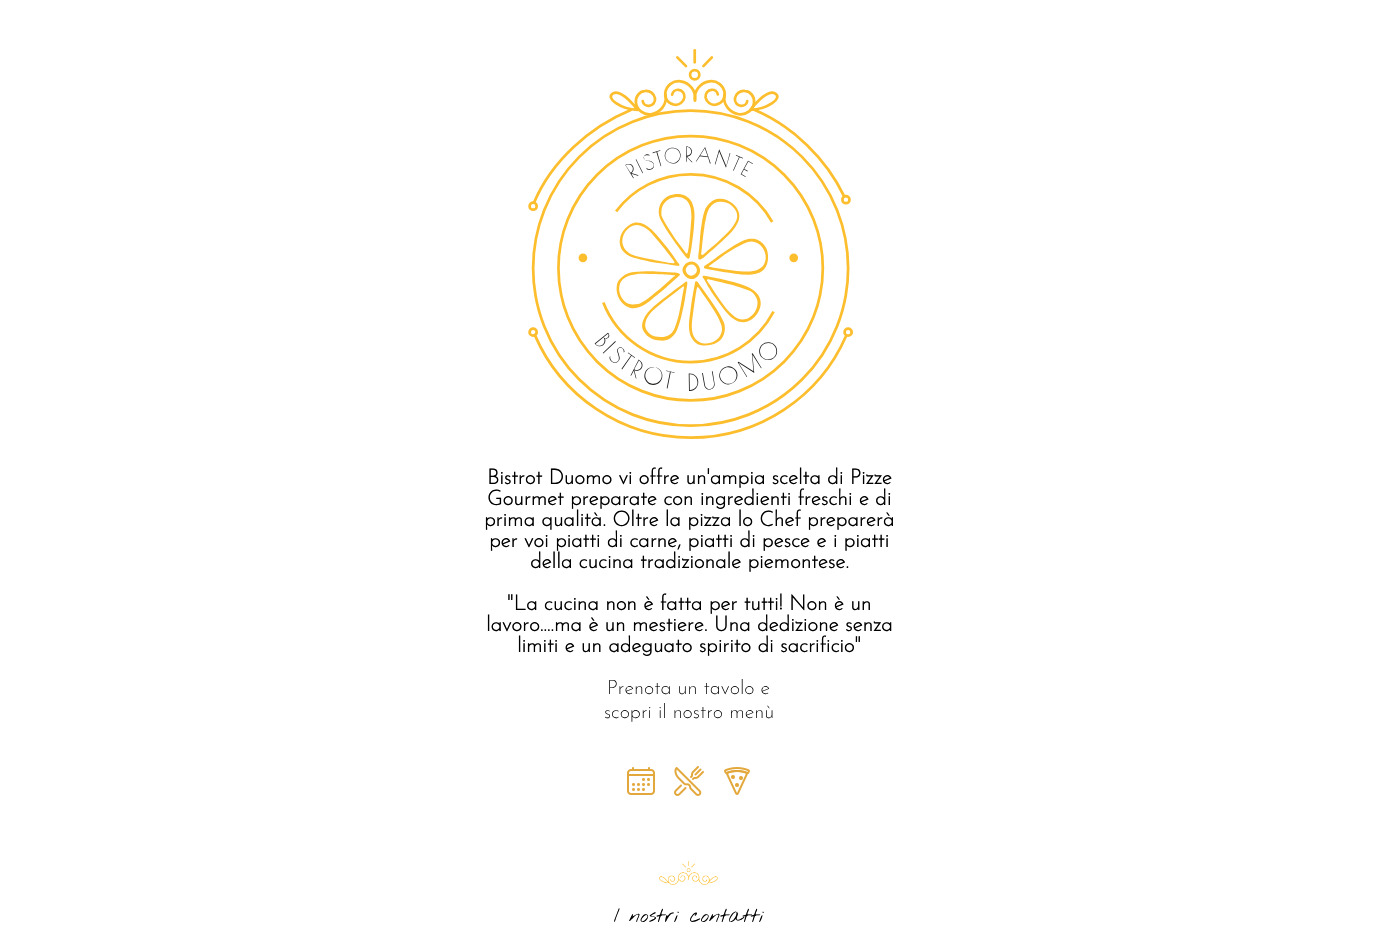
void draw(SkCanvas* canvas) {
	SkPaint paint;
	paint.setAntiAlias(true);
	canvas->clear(0xffffffff);
	canvas->drawImageRect(SkImages::DeferredFromEncodedData(SkData::MakeFromFileName("img1.png")), SkRect::MakeXYWH(528, 49, 325, 390), SkSamplingOptions());
	SkFont f1(fontMgr->matchFamilyStyle("Josefin Sans", SkFontStyle::Bold()), 21);
	f1.setSubpixel(true);
	paint.setColor(0xff000000);
	canvas->drawString("Bistrot Duomo vi offre un'ampia scelta di Pizze", 487, 484, f1, paint);
	canvas->drawString("Gourmet preparate con ingredienti freschi e di", 487, 505, f1, paint);
	canvas->drawString("prima qualità. Oltre la pizza lo Chef preparerà", 484, 526, f1, paint);
	canvas->drawString("per voi piatti di carne, piatti di pesce e i piatti", 489, 547, f1, paint);
	canvas->drawString("della cucina tradizionale piemontese.", 530, 568, f1, paint);
	canvas->drawString("\"La cucina non è fatta per tutti! Non è un", 507, 610, f1, paint);
	canvas->drawString("lavoro….ma è un mestiere. Una dedizione senza", 486, 631, f1, paint);
	canvas->drawString("limiti e un adeguato spirito di sacrificio\"", 517, 652, f1, paint);
	SkFont f2(fontMgr->matchFamilyStyle("Josefin Sans", SkFontStyle(200, SkFontStyle::kNormal_Width, SkFontStyle::kUpright_Slant)), 20);
	f2.setSubpixel(true);
	canvas->drawString("Prenota un tavolo e", 607, 694, f2, paint);
	canvas->drawString("scopri il nostro menù", 604, 718, f2, paint);
	canvas->drawImageRect(SkImages::DeferredFromEncodedData(SkData::MakeFromFileName("img2.png")), SkRect::MakeXYWH(627, 767, 28, 28), SkSamplingOptions());
	canvas->drawImageRect(SkImages::DeferredFromEncodedData(SkData::MakeFromFileName("img3.png")), SkRect::MakeXYWH(674, 766, 30, 30), SkSamplingOptions());
	canvas->drawImageRect(SkImages::DeferredFromEncodedData(SkData::MakeFromFileName("img4.png")), SkRect::MakeXYWH(724, 767, 26, 28), SkSamplingOptions());
	canvas->drawImageRect(SkImages::DeferredFromEncodedData(SkData::MakeFromFileName("img5.png")), SkRect::MakeXYWH(659, 861, 59, 24), SkSamplingOptions());
	SkFont f3(fontMgr->matchFamilyStyle("Nothing You Could Do", SkFontStyle(100, SkFontStyle::kNormal_Width, SkFontStyle::kUpright_Slant)), 20);
	f3.setSubpixel(true);
	canvas->drawString("I nostri contatti", 614, 922, f3, paint);
}
